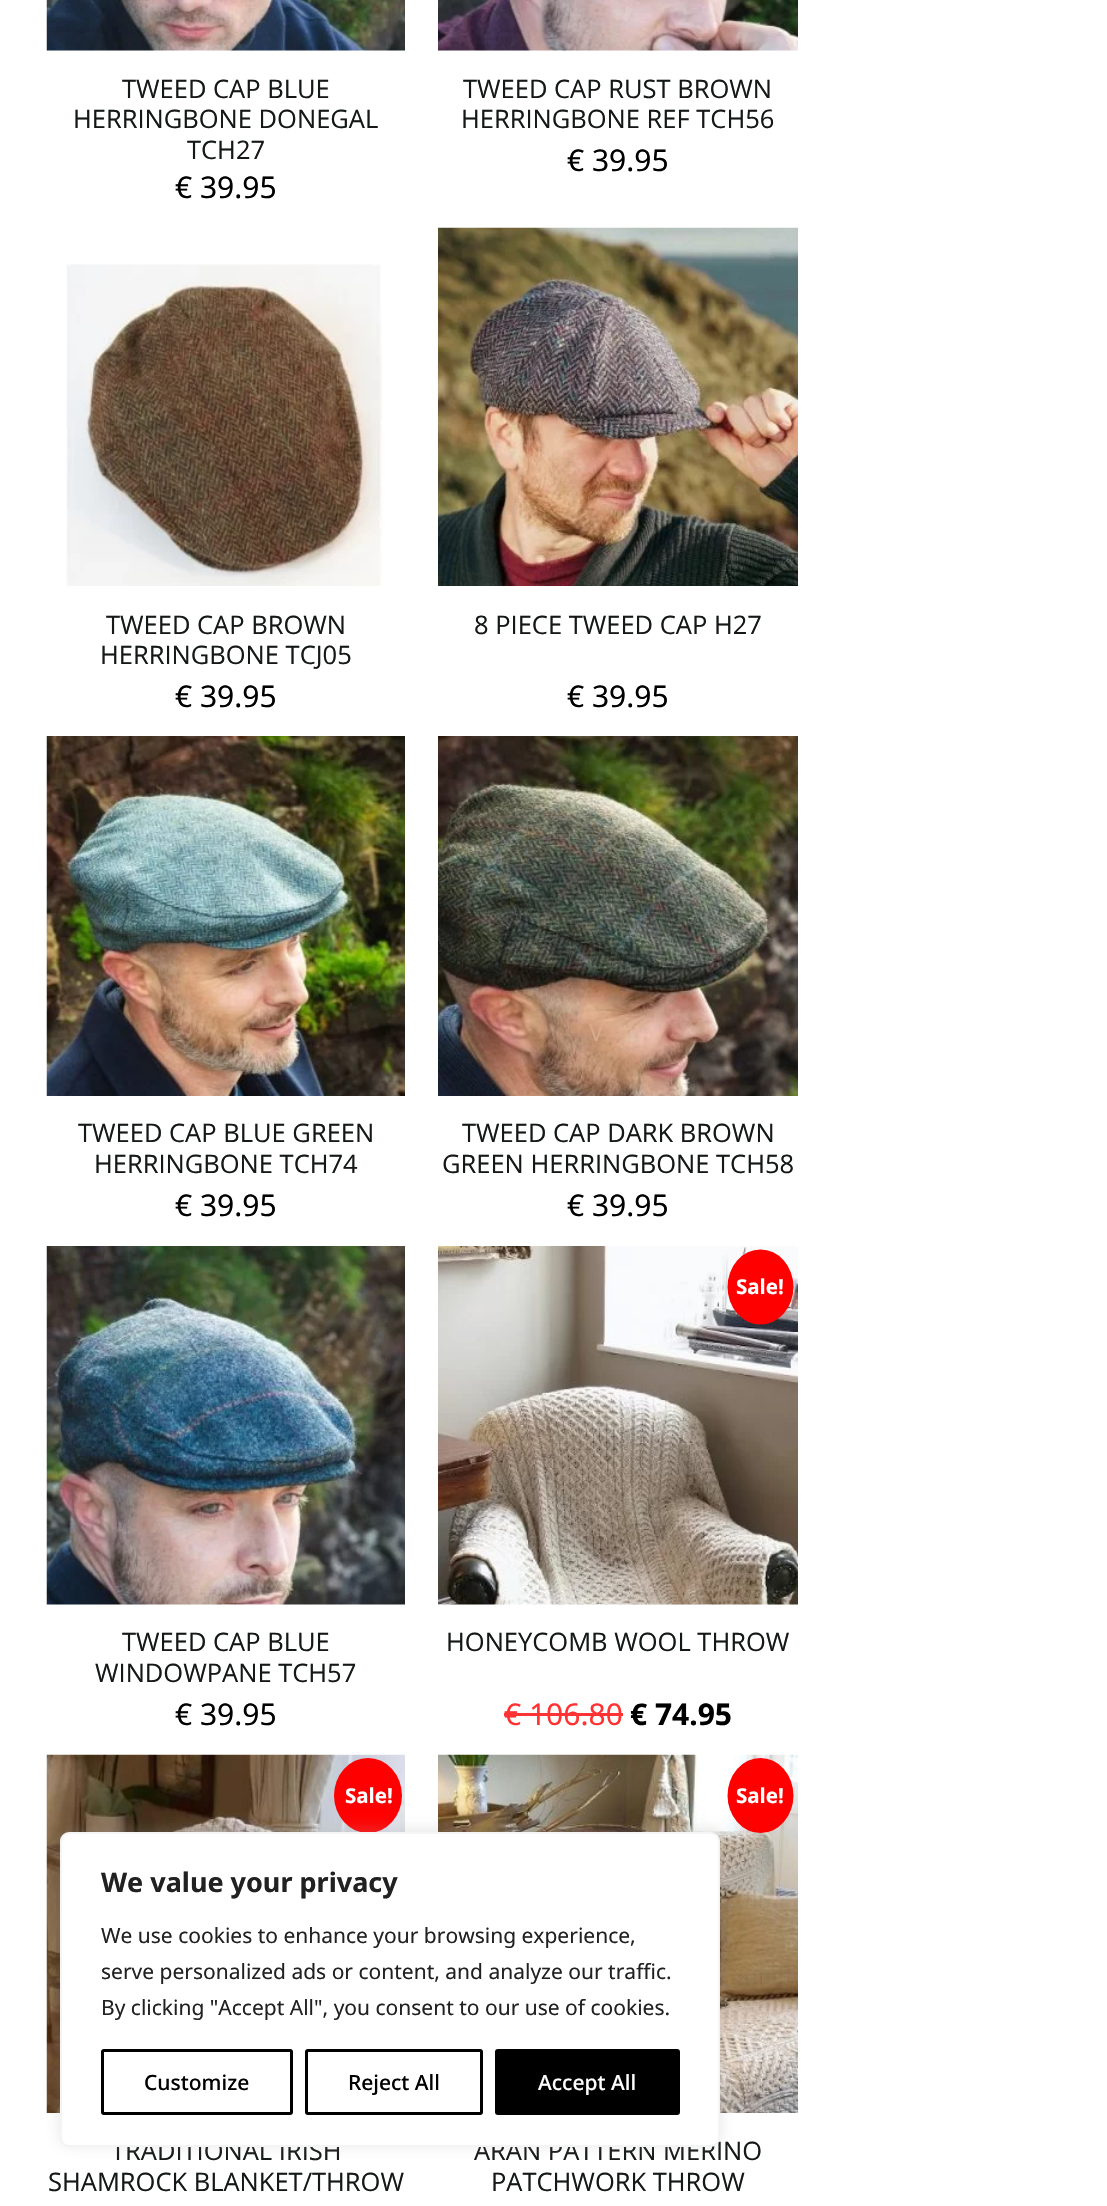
void draw(SkCanvas* canvas) {
	SkPaint paint;
	paint.setAntiAlias(true);
	canvas->clear(0xffffffff);
	canvas->drawImageRect(SkImages::DeferredFromEncodedData(SkData::MakeFromFileName("img1.png")), SkRect::MakeXYWH(46, 0, 359, 51), SkSamplingOptions());
	SkFont f1(fontMgr->matchFamilyStyle("Open Sans", SkFontStyle::Normal()), 25.5);
	f1.setSubpixel(true);
	paint.setColor(0xff151818);
	canvas->drawString("TWEED CAP BLUE", 122, 98, f1, paint);
	canvas->drawString("HERRINGBONE DONEGAL", 73, 128, f1, paint);
	canvas->drawString("TCH27", 187, 159, f1, paint);
	SkFont f2(fontMgr->matchFamilyStyle("Noto Sans", SkFontStyle::Normal()), 30);
	f2.setSubpixel(true);
	paint.setColor(0xff000000);
	canvas->drawString("€ 39.95", 175, 198, f2, paint);
	canvas->drawImageRect(SkImages::DeferredFromEncodedData(SkData::MakeFromFileName("img2.png")), SkRect::MakeXYWH(438, 0, 360, 51), SkSamplingOptions());
	paint.setColor(0xff151818);
	canvas->drawString("TWEED CAP RUST BROWN", 463, 98, f1, paint);
	canvas->drawString("HERRINGBONE REF TCH56", 461, 128, f1, paint);
	paint.setColor(0xff000000);
	canvas->drawString("€ 39.95", 567, 171, f2, paint);
	canvas->drawImageRect(SkImages::DeferredFromEncodedData(SkData::MakeFromFileName("img3.png")), SkRect::MakeXYWH(66, 264, 317, 322), SkSamplingOptions());
	paint.setColor(0xff151818);
	canvas->drawString("TWEED CAP BROWN", 106, 634, f1, paint);
	canvas->drawString("HERRINGBONE TCJ05", 100, 664, f1, paint);
	paint.setColor(0xff000000);
	canvas->drawString("€ 39.95", 175, 707, f2, paint);
	canvas->drawImageRect(SkImages::DeferredFromEncodedData(SkData::MakeFromFileName("img4.png")), SkRect::MakeXYWH(438, 227, 360, 359), SkSamplingOptions());
	paint.setColor(0xff151818);
	canvas->drawString("8 PIECE TWEED CAP H27", 474, 634, f1, paint);
	paint.setColor(0xff000000);
	canvas->drawString("€ 39.95", 567, 707, f2, paint);
	canvas->drawImageRect(SkImages::DeferredFromEncodedData(SkData::MakeFromFileName("img5.png")), SkRect::MakeXYWH(46, 736, 359, 360), SkSamplingOptions());
	paint.setColor(0xff151818);
	canvas->drawString("TWEED CAP BLUE GREEN", 78, 1142, f1, paint);
	canvas->drawString("HERRINGBONE TCH74", 94, 1173, f1, paint);
	paint.setColor(0xff000000);
	canvas->drawString("€ 39.95", 175, 1216, f2, paint);
	canvas->drawImageRect(SkImages::DeferredFromEncodedData(SkData::MakeFromFileName("img6.png")), SkRect::MakeXYWH(438, 736, 360, 360), SkSamplingOptions());
	SkFont f3(fontMgr->matchFamilyStyle("Noto Sans", SkFontStyle::Normal()), 24);
	f3.setSubpixel(true);
	paint.setColor(0xffd7a98d);
	canvas->drawString("V", 589, 1041, f3, paint);
	paint.setColor(0xff151818);
	canvas->drawString("TWEED CAP DARK BROWN", 462, 1142, f1, paint);
	canvas->drawString("GREEN HERRINGBONE TCH58", 442, 1173, f1, paint);
	paint.setColor(0xff000000);
	canvas->drawString("€ 39.95", 567, 1216, f2, paint);
	canvas->drawImageRect(SkImages::DeferredFromEncodedData(SkData::MakeFromFileName("img7.png")), SkRect::MakeXYWH(46, 1246, 359, 359), SkSamplingOptions());
	paint.setColor(0xff151818);
	canvas->drawString("TWEED CAP BLUE", 122, 1651, f1, paint);
	canvas->drawString("WINDOWPANE TCH57", 95, 1682, f1, paint);
	paint.setColor(0xff000000);
	canvas->drawString("€ 39.95", 175, 1725, f2, paint);
	canvas->drawImageRect(SkImages::DeferredFromEncodedData(SkData::MakeFromFileName("img8.png")), SkRect::MakeXYWH(438, 1246, 360, 359), SkSamplingOptions());
	paint.setColor(0xffff0000);
	canvas->drawOval(SkRect::MakeXYWH(727.5, 1249.5, 66, 75), paint);
	SkFont f4(fontMgr->matchFamilyStyle("Noto Sans", SkFontStyle::Bold()), 20.5);
	f4.setSubpixel(true);
	paint.setColor(0xffffffff);
	canvas->drawString("Sale!", 736, 1294, f4, paint);
	paint.setColor(0xff151818);
	canvas->drawString("HONEYCOMB WOOL THROW", 446, 1651, f1, paint);
	paint.setColor(0xffff3333);
	canvas->drawString("€ 106.80", 504, 1725, f2, paint);
	canvas->drawRect(SkRect::MakeXYWH(504, 1713, 119, 3), paint);
	SkFont f5(fontMgr->matchFamilyStyle("Noto Sans", SkFontStyle::Bold()), 30);
	f5.setSubpixel(true);
	paint.setColor(0xff000000);
	canvas->drawString("€ 74.95", 630, 1725, f5, paint);
	canvas->drawImageRect(SkImages::DeferredFromEncodedData(SkData::MakeFromFileName("img9.png")), SkRect::MakeXYWH(46, 1754, 359, 359), SkSamplingOptions());
	paint.setColor(0xffff0000);
	canvas->drawOval(SkRect::MakeXYWH(334, 1758, 68, 75), paint);
	paint.setColor(0xffffffff);
	canvas->drawString("Sale!", 345, 1803, f4, paint);
	paint.setColor(0xff151818);
	canvas->drawString("TRADITIONAL IRISH", 111, 2160, f1, paint);
	canvas->drawString("SHAMROCK BLANKET/THROW", 48, 2191, f1, paint);
	canvas->drawImageRect(SkImages::DeferredFromEncodedData(SkData::MakeFromFileName("img10.png")), SkRect::MakeXYWH(438, 1754, 360, 359), SkSamplingOptions());
	paint.setColor(0xffff0000);
	canvas->drawOval(SkRect::MakeXYWH(727.5, 1758, 66, 75), paint);
	paint.setColor(0xffffffff);
	canvas->drawString("Sale!", 736, 1803, f4, paint);
	paint.setColor(0xff151818);
	canvas->drawString("ARAN PATTERN MERINO", 474, 2160, f1, paint);
	canvas->drawString("PATCHWORK THROW", 491, 2191, f1, paint);
	paint.setColor(0x4dacabab);
	paint.setMaskFilter(SkMaskFilter::MakeBlur(kNormal_SkBlurStyle, 7.5));
	canvas->drawRoundRect(SkRect::MakeXYWH(60, 1830, 660, 315), 9, 9, paint);
	paint.setMaskFilter(nullptr);
	paint.setColor(0xffffffff);
	canvas->drawRoundRect(SkRect::MakeXYWH(61, 1833, 658, 313), 8, 8, paint);
	paint.setStroke(true);
	paint.setStrokeWidth(2);
	paint.setColor(0xfff4f4f4);
	canvas->drawRoundRect(SkRect::MakeXYWH(61, 1833, 658, 313), 8, 8, paint);
	SkFont f6(fontMgr->matchFamilyStyle("Noto Sans", SkFontStyle::Bold()), 27);
	f6.setSubpixel(true);
	paint.setStroke(false);
	paint.setColor(0xff212121);
	canvas->drawString("We value your privacy", 101, 1892, f6, paint);
	SkFont f7(fontMgr->matchFamilyStyle("Noto Sans", SkFontStyle::Normal()), 21);
	f7.setSubpixel(true);
	canvas->drawString("We use cookies to enhance your browsing experience,", 101, 1943, f7, paint);
	canvas->drawString("serve personalized ads or content, and analyze our traffic.", 101, 1979, f7, paint);
	canvas->drawString("By clicking \"Accept All\", you consent to our use of cookies.", 101, 2015, f7, paint);
	paint.setStroke(true);
	paint.setStrokeWidth(3);
	paint.setColor(0xff000000);
	canvas->drawRoundRect(SkRect::MakeXYWH(102.5, 2050.5, 189, 63), 1.5, 1.5, paint);
	SkFont f8(fontMgr->matchFamilyStyle("Noto Sans", SkFontStyle(500, SkFontStyle::kNormal_Width, SkFontStyle::kUpright_Slant)), 21);
	f8.setSubpixel(true);
	paint.setStroke(false);
	canvas->drawString("Customize", 144, 2090, f8, paint);
	paint.setStroke(true);
	canvas->drawRoundRect(SkRect::MakeXYWH(306.5, 2050.5, 175, 63), 1.5, 1.5, paint);
	paint.setStroke(false);
	canvas->drawString("Reject All", 348, 2090, f8, paint);
	canvas->drawRoundRect(SkRect::MakeXYWH(496.5, 2050.5, 182, 63), 1.5, 1.5, paint);
	paint.setStroke(true);
	canvas->drawRoundRect(SkRect::MakeXYWH(496.5, 2050.5, 182, 63), 1.5, 1.5, paint);
	paint.setStroke(false);
	paint.setColor(0xffffffff);
	canvas->drawString("Accept All", 538, 2090, f8, paint);
}
